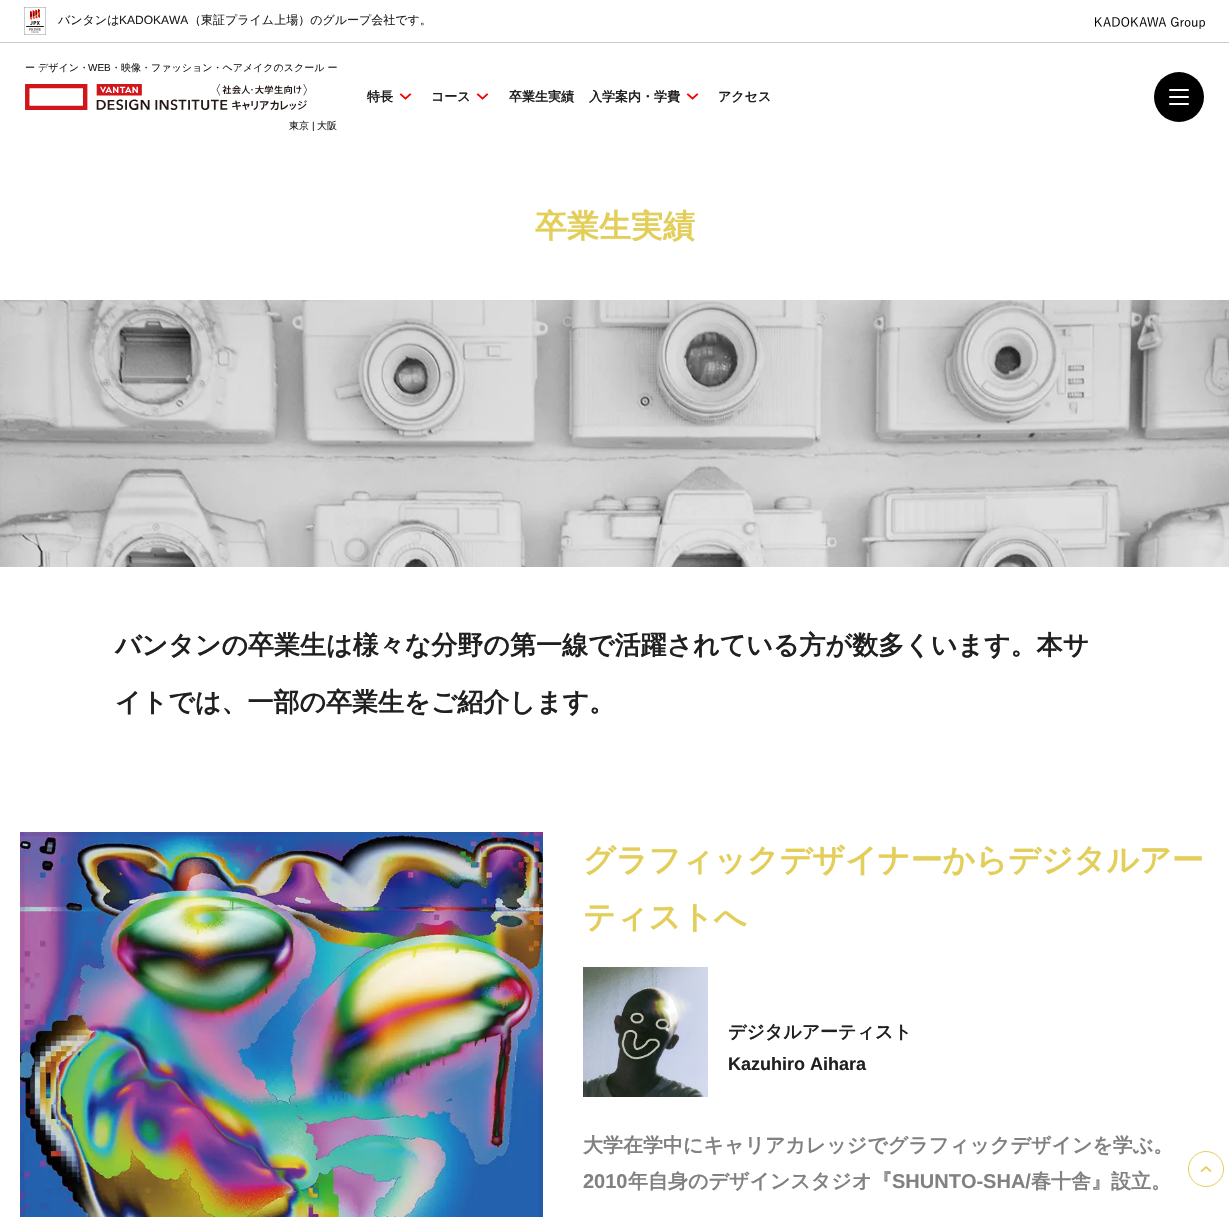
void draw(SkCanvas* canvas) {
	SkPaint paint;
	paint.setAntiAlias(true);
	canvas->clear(0xffffffff);
	canvas->drawImageRect(SkImages::DeferredFromEncodedData(SkData::MakeFromFileName("img1.png")), SkRect::MakeXYWH(24, 7, 22, 28), SkSamplingOptions());
	SkFont f1(fontMgr->matchFamilyStyle("WenQuanYi Zen Hei", SkFontStyle(500, SkFontStyle::kNormal_Width, SkFontStyle::kUpright_Slant)), 12);
	f1.setSubpixel(true);
	paint.setColor(0xff202020);
	canvas->drawString("バンタンは", 58, 24, f1, paint);
	SkFont f2(fontMgr->matchFamilyStyle("Liberation Sans", SkFontStyle::Normal()), 12);
	f2.setSubpixel(true);
	canvas->drawString("KADOKAWA", 119, 24, f2, paint);
	canvas->drawString("（東証プライム上場）のグループ会社です。", 189, 24, f1, paint);
	canvas->drawImageRect(SkImages::DeferredFromEncodedData(SkData::MakeFromFileName("img2.png")), SkRect::MakeXYWH(1095, 17, 110, 12), SkSamplingOptions());
	paint.setColor(0xffcccccc);
	canvas->drawRect(SkRect::MakeXYWH(0, 42, 1229, 1), paint);
	SkFont f3(fontMgr->matchFamilyStyle("WenQuanYi Zen Hei", SkFontStyle(500, SkFontStyle::kNormal_Width, SkFontStyle::kUpright_Slant)), 10);
	f3.setSubpixel(true);
	paint.setColor(0xff202020);
	canvas->drawString("ー デザイン・", 25, 71, f3, paint);
	SkFont f4(fontMgr->matchFamilyStyle("Liberation Sans", SkFontStyle::Normal()), 10);
	f4.setSubpixel(true);
	canvas->drawString("WEB", 88, 71, f4, paint);
	canvas->drawString("・映像・ファッション・ヘアメイクのスクール ー", 111, 71, f3, paint);
	canvas->drawImageRect(SkImages::DeferredFromEncodedData(SkData::MakeFromFileName("img3.png")), SkRect::MakeXYWH(25, 84, 282, 26), SkSamplingOptions());
	canvas->drawString("東京", 289, 129, f3, paint);
	canvas->drawString("|", 312, 129, f4, paint);
	canvas->drawString("大阪", 317, 129, f3, paint);
	SkFont f5(fontMgr->matchFamilyStyle("WenQuanYi Zen Hei", SkFontStyle::Bold()), 13);
	f5.setSubpixel(true);
	canvas->drawString("特長", 367, 101, f5, paint);
	canvas->drawImageRect(SkImages::DeferredFromEncodedData(SkData::MakeFromFileName("img4.png")), SkRect::MakeXYWH(399, 93, 13, 7), SkSamplingOptions());
	canvas->drawString("コース", 431, 101, f5, paint);
	canvas->drawImageRect(SkImages::DeferredFromEncodedData(SkData::MakeFromFileName("img4.png")), SkRect::MakeXYWH(476, 93, 13, 7), SkSamplingOptions());
	canvas->drawString("卒業生実績", 509, 101, f5, paint);
	canvas->drawString("入学案内・学費", 589, 101, f5, paint);
	canvas->drawImageRect(SkImages::DeferredFromEncodedData(SkData::MakeFromFileName("img4.png")), SkRect::MakeXYWH(686, 93, 13, 7), SkSamplingOptions());
	canvas->drawString("アクセス", 718, 101, f5, paint);
	paint.setColor(0xff000000);
	canvas->drawCircle(1179, 97, 25, paint);
	paint.setColor(0xffffffff);
	canvas->drawRoundRect(SkRect::MakeXYWH(1169, 96, 20, 2), 1, 1, paint);
	canvas->drawRoundRect(SkRect::MakeXYWH(1169, 89, 20, 2), 1, 1, paint);
	canvas->drawRoundRect(SkRect::MakeXYWH(1169, 103, 20, 2), 1, 1, paint);
	SkFont f6(fontMgr->matchFamilyStyle("WenQuanYi Zen Hei", SkFontStyle::Bold()), 32);
	f6.setSubpixel(true);
	paint.setColor(0xffe2ce58);
	canvas->drawString("卒業生実績", 535, 237, f6, paint);
	canvas->drawImageRect(SkImages::DeferredFromEncodedData(SkData::MakeFromFileName("img5.png")), SkRect::MakeXYWH(0, 300, 1229, 267), SkSamplingOptions());
	SkFont f7(fontMgr->matchFamilyStyle("WenQuanYi Zen Hei", SkFontStyle::Bold()), 26);
	f7.setSubpixel(true);
	paint.setColor(0xff202020);
	canvas->drawString("バンタンの卒業生は様々な分野の第一線で活躍されている方が数多くいます。本サ", 115, 654, f7, paint);
	canvas->drawString("イトでは、一部の卒業生をご紹介します。", 115, 711, f7, paint);
	canvas->drawImageRect(SkImages::DeferredFromEncodedData(SkData::MakeFromFileName("img6.png")), SkRect::MakeXYWH(20, 832, 523, 385), SkSamplingOptions());
	paint.setColor(0xffe2ce58);
	canvas->drawString("グラフィックデザイナーからデジタルアー", 583, 871, f6, paint);
	canvas->drawString("ティストへ", 583, 928, f6, paint);
	canvas->drawImageRect(SkImages::DeferredFromEncodedData(SkData::MakeFromFileName("img7.png")), SkRect::MakeXYWH(583, 967, 125, 130), SkSamplingOptions());
	SkFont f8(fontMgr->matchFamilyStyle("WenQuanYi Zen Hei", SkFontStyle::Bold()), 18);
	f8.setSubpixel(true);
	paint.setColor(0xff202020);
	canvas->drawString("デジタルアーティスト", 728, 1038, f8, paint);
	SkFont f9(fontMgr->matchFamilyStyle("Liberation Sans", SkFontStyle::Bold()), 18);
	f9.setSubpixel(true);
	canvas->drawString("Kazuhiro Aihara", 728, 1070, f9, paint);
	SkFont f10(fontMgr->matchFamilyStyle("WenQuanYi Zen Hei", SkFontStyle::Bold()), 20);
	f10.setSubpixel(true);
	paint.setColor(0xff818181);
	canvas->drawString("大学在学中にキャリアカレッジでグラフィックデザインを学ぶ。", 583, 1152, f10, paint);
	SkFont f11(fontMgr->matchFamilyStyle("Liberation Sans", SkFontStyle::Bold()), 20);
	f11.setSubpixel(true);
	canvas->drawString("2010", 583, 1188, f11, paint);
	canvas->drawString("年自身のデザインスタジオ『", 628, 1188, f10, paint);
	canvas->drawString("SHUNTO-SHA/", 892, 1188, f11, paint);
	canvas->drawString("春十舎』設立。", 1031, 1188, f10, paint);
	paint.setStroke(true);
	paint.setStrokeWidth(1);
	paint.setColor(0xffe2ce58);
	canvas->drawCircle(1206, 1169, 17.5, paint);
	canvas->drawImageRect(SkImages::DeferredFromEncodedData(SkData::MakeFromFileName("img8.png")), SkRect::MakeXYWH(1200, 1166, 12, 7), SkSamplingOptions());
}
